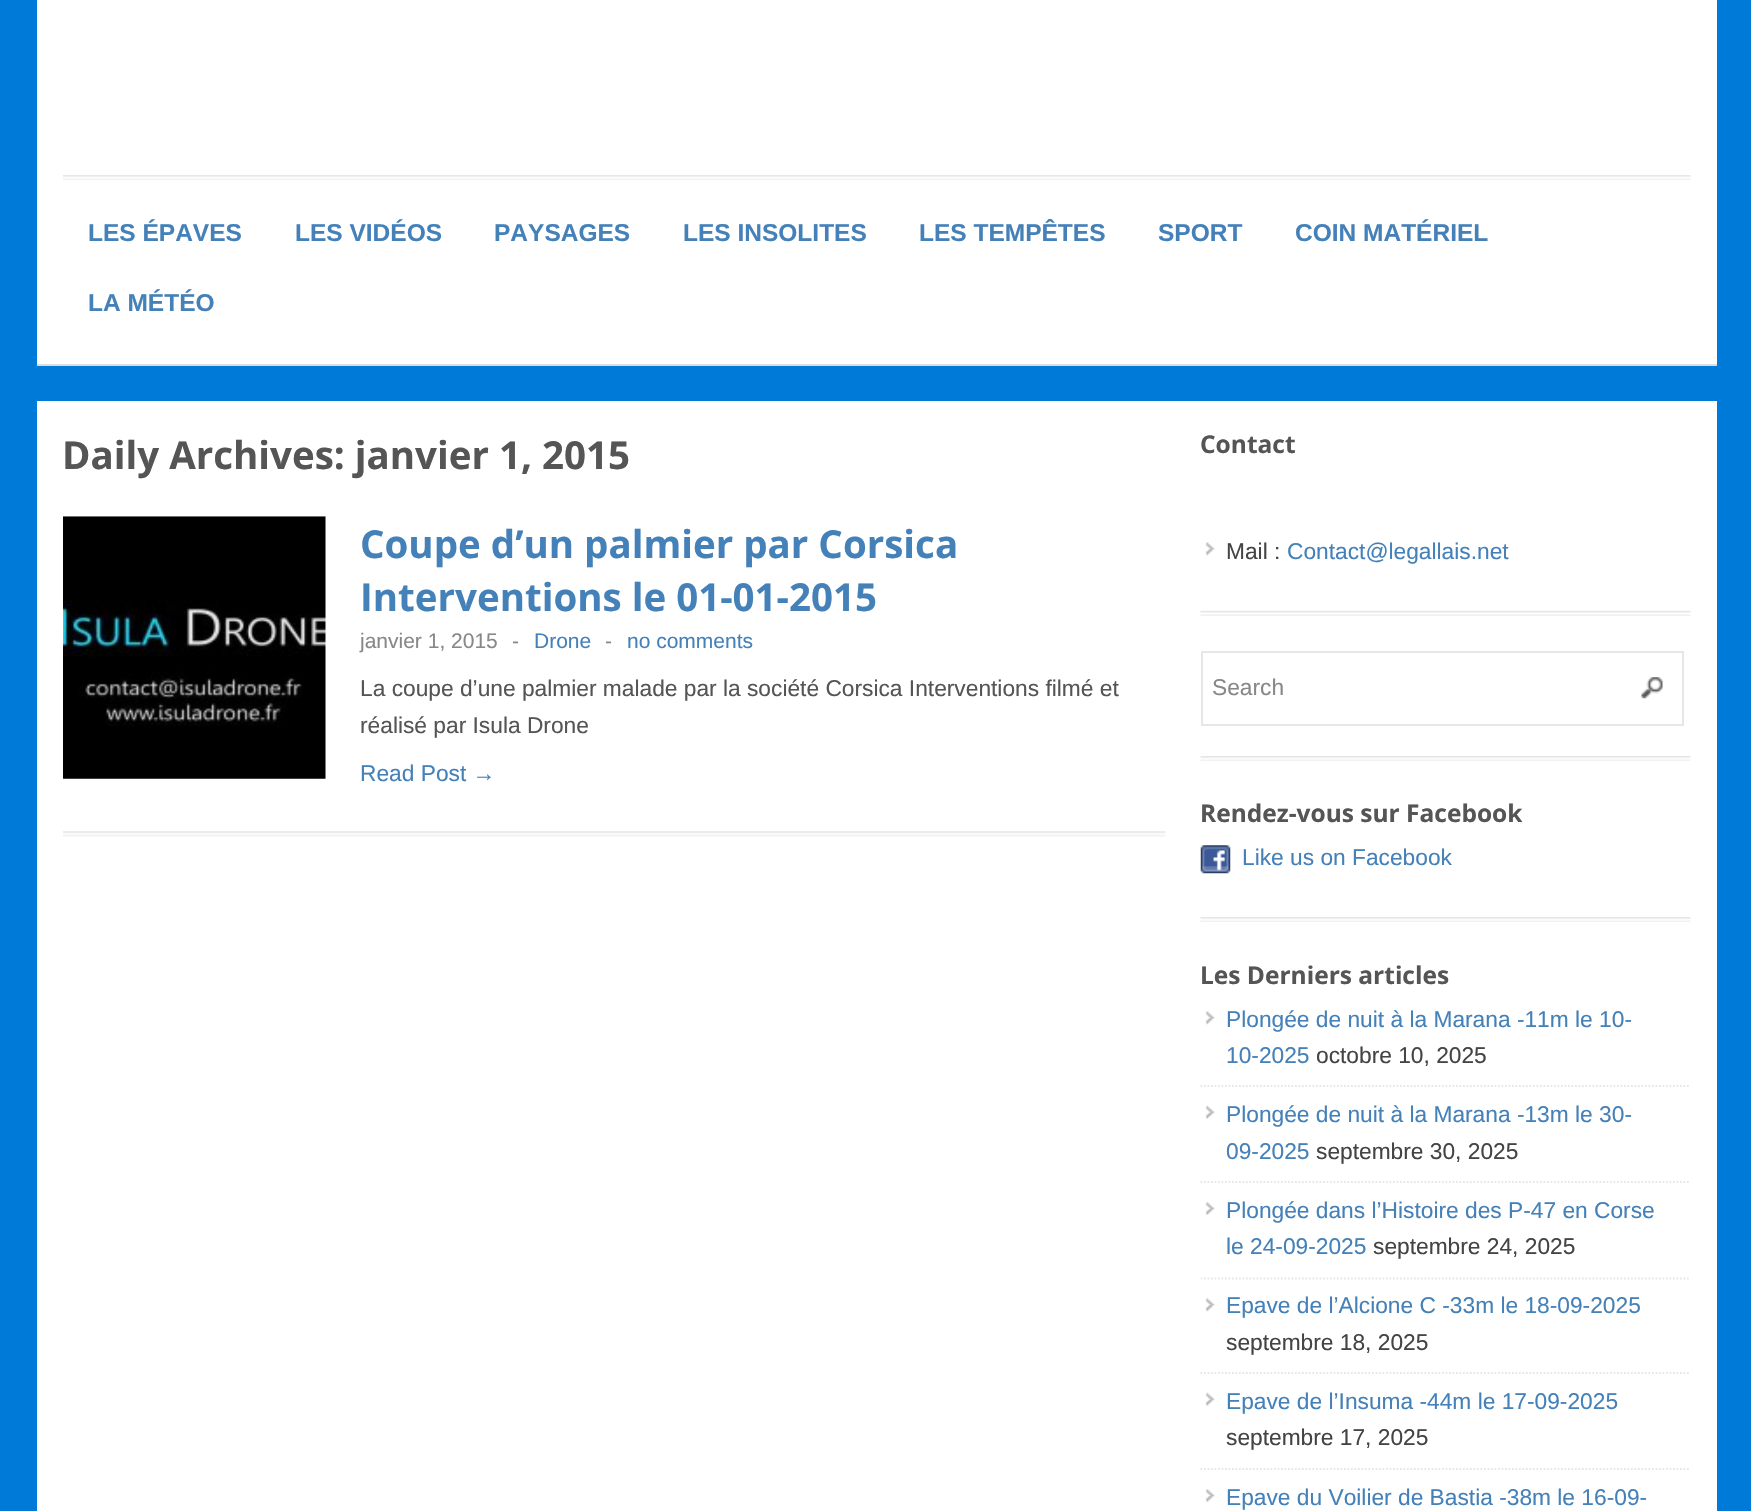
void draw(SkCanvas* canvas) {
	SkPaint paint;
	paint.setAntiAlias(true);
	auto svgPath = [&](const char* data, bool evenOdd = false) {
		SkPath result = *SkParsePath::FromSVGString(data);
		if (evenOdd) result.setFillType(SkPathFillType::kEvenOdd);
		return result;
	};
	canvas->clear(0xff007ad8);
	paint.setColor(0xffffffff);
	canvas->drawRect(SkRect::MakeXYWH(37, 0, 1680, 364), paint);
	paint.setColor(0xffdddddd);
	canvas->drawRect(SkRect::MakeXYWH(37, 364, 1680, 2), paint);
	canvas->drawImageRect(SkImages::DeferredFromEncodedData(SkData::MakeFromFileName("img1.png")), SkRect::MakeXYWH(63, 175, 1628, 5), SkSamplingOptions());
	SkFont f1(fontMgr->matchFamilyStyle("Liberation Sans", SkFontStyle::Bold()), 24.5);
	f1.setSubpixel(true);
	paint.setColor(0xff4581b9);
	canvas->drawString("LES ÉPAVES", 88, 241, f1, paint);
	canvas->drawString("LES VIDÉOS", 295, 241, f1, paint);
	canvas->drawString("PAYSAGES", 494, 241, f1, paint);
	canvas->drawString("LES INSOLITES", 683, 241, f1, paint);
	canvas->drawString("LES TEMPÊTES", 919, 241, f1, paint);
	canvas->drawString("SPORT", 1158, 241, f1, paint);
	canvas->drawString("COIN MATÉRIEL", 1295, 241, f1, paint);
	canvas->drawString("LA MÉTÉO", 88, 311, f1, paint);
	paint.setColor(0xffffffff);
	canvas->drawRect(SkRect::MakeXYWH(37, 401, 1680, 1110), paint);
	SkFont f2(fontMgr->matchFamilyStyle("Open Sans", SkFontStyle::Bold()), 38.5);
	f2.setSubpixel(true);
	paint.setColor(0xff555555);
	canvas->drawString("Daily Archives: janvier 1, 2015", 62, 469, f2, paint);
	canvas->drawImageRect(SkImages::DeferredFromEncodedData(SkData::MakeFromFileName("img2.png")), SkRect::MakeXYWH(63, 831, 1103, 6), SkSamplingOptions());
	canvas->drawImageRect(SkImages::DeferredFromEncodedData(SkData::MakeFromFileName("img3.png")), SkRect::MakeXYWH(63, 516, 263, 263), SkSamplingOptions());
	paint.setColor(0xff4581b9);
	canvas->drawString("Coupe d’un palmier par Corsica", 360, 558, f2, paint);
	canvas->drawString("Interventions le 01-01-2015", 360, 611, f2, paint);
	SkFont f3(fontMgr->matchFamilyStyle("Liberation Sans", SkFontStyle::Normal()), 21);
	f3.setSubpixel(true);
	paint.setColor(0xff888888);
	canvas->drawString("janvier 1, 2015", 360, 648, f3, paint);
	canvas->drawString("-", 512, 648, f3, paint);
	paint.setColor(0xff4581b9);
	canvas->drawString("Drone", 534, 648, f3, paint);
	paint.setColor(0xff888888);
	canvas->drawString("-", 605, 648, f3, paint);
	paint.setColor(0xff4581b9);
	canvas->drawString("no comments", 627, 648, f3, paint);
	SkFont f4(fontMgr->matchFamilyStyle("Liberation Sans", SkFontStyle::Normal()), 22.75);
	f4.setSubpixel(true);
	paint.setColor(0xff555555);
	canvas->drawString("La coupe d’une palmier malade par la société Corsica Interventions filmé et", 360, 696, f4, paint);
	canvas->drawString("réalisé par Isula Drone", 360, 733, f4, paint);
	paint.setColor(0xff4581b9);
	canvas->drawString("Read Post →", 360, 781, f4, paint);
	canvas->drawImageRect(SkImages::DeferredFromEncodedData(SkData::MakeFromFileName("img4.png")), SkRect::MakeXYWH(1200, 610, 491, 6), SkSamplingOptions());
	SkFont f5(fontMgr->matchFamilyStyle("Open Sans", SkFontStyle::Bold()), 24.5);
	f5.setSubpixel(true);
	paint.setColor(0xff555555);
	canvas->drawString("Contact", 1200, 453, f5, paint);
	canvas->drawImageRect(SkImages::DeferredFromEncodedData(SkData::MakeFromFileName("img5.png")), SkRect::MakeXYWH(1205, 542, 10, 14), SkSamplingOptions());
	paint.setColor(0xff444444);
	canvas->drawString("Mail :", 1226, 559, f4, paint);
	paint.setColor(0xff4581b9);
	canvas->drawString("Contact@legallais.net", 1287, 559, f4, paint);
	canvas->drawImageRect(SkImages::DeferredFromEncodedData(SkData::MakeFromFileName("img6.png")), SkRect::MakeXYWH(1200, 756, 491, 5), SkSamplingOptions());
	canvas->drawImageRect(SkImages::DeferredFromEncodedData(SkData::MakeFromFileName("img7.png")), SkRect::MakeXYWH(1641, 677, 22, 22), SkSamplingOptions());
	paint.setStroke(true);
	paint.setStrokeWidth(2);
	paint.setColor(0xffe7e7e7);
	canvas->drawRect(SkRect::MakeXYWH(1202, 652, 481, 73), paint);
	paint.setStroke(false);
	paint.setColor(0xff888888);
	canvas->drawString("Search", 1212, 695, f4, paint);
	canvas->drawImageRect(SkImages::DeferredFromEncodedData(SkData::MakeFromFileName("img6.png")), SkRect::MakeXYWH(1200, 917, 491, 5), SkSamplingOptions());
	paint.setColor(0xff555555);
	canvas->drawString("Rendez-vous sur Facebook", 1200, 822, f5, paint);
	canvas->drawImageRect(SkImages::DeferredFromEncodedData(SkData::MakeFromFileName("img8.png")), SkRect::MakeXYWH(1200, 845, 31, 29), SkSamplingOptions());
	paint.setColor(0xff4581b9);
	canvas->drawString("Like us on Facebook", 1242, 865, f4, paint);
	paint.setColor(0xff555555);
	canvas->drawString("Les Derniers articles", 1200, 984, f5, paint);
	canvas->drawImageRect(SkImages::DeferredFromEncodedData(SkData::MakeFromFileName("img5.png")), SkRect::MakeXYWH(1205, 1011, 10, 14), SkSamplingOptions());
	paint.setStroke(true);
	paint.setStrokeWidth(1.8);
	paint.setColor(0xffe7e7e7);
	paint.setPathEffect(SkDashPathEffect::Make({{1.75f, 1.75f}}, 0));
	canvas->drawPath(svgPath("M1200.5 1086H1690.5"), paint);
	paint.setPathEffect(nullptr);
	paint.setStroke(false);
	paint.setColor(0xff4581b9);
	canvas->drawString("Plongée de nuit à la Marana -11m le 10-", 1226, 1027, f4, paint);
	canvas->drawString("10-2025", 1226, 1063, f4, paint);
	paint.setColor(0xff444444);
	canvas->drawString("octobre 10, 2025", 1316, 1063, f4, paint);
	canvas->drawImageRect(SkImages::DeferredFromEncodedData(SkData::MakeFromFileName("img9.png")), SkRect::MakeXYWH(1205, 1105, 10, 14), SkSamplingOptions());
	paint.setStroke(true);
	paint.setColor(0xffe7e7e7);
	paint.setPathEffect(SkDashPathEffect::Make({{1.75f, 1.75f}}, 0));
	canvas->drawPath(svgPath("M1200.5 1182H1690.5"), paint);
	paint.setPathEffect(nullptr);
	paint.setStroke(false);
	paint.setColor(0xff4581b9);
	canvas->drawString("Plongée de nuit à la Marana -13m le 30-", 1226, 1122, f4, paint);
	canvas->drawString("09-2025", 1226, 1159, f4, paint);
	paint.setColor(0xff444444);
	canvas->drawString("septembre 30, 2025", 1316, 1159, f4, paint);
	canvas->drawImageRect(SkImages::DeferredFromEncodedData(SkData::MakeFromFileName("img10.png")), SkRect::MakeXYWH(1205, 1202, 10, 13), SkSamplingOptions());
	canvas->save();
	canvas->clipRect(SkRect::MakeXYWH(1201, 957, 490, 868));
	paint.setStroke(true);
	paint.setColor(0xffe7e7e7);
	paint.setPathEffect(SkDashPathEffect::Make({{1.75f, 1.75f}}, 0));
	canvas->drawPath(svgPath("M1200.5 1278.5H1690.5"), paint);
	paint.setPathEffect(nullptr);
	canvas->restore();
	paint.setStroke(false);
	paint.setColor(0xff4581b9);
	canvas->drawString("Plongée dans l’Histoire des P-47 en Corse", 1226, 1218, f4, paint);
	canvas->drawString("le 24-09-2025", 1226, 1254, f4, paint);
	paint.setColor(0xff444444);
	canvas->drawString("septembre 24, 2025", 1373, 1254, f4, paint);
	canvas->drawImageRect(SkImages::DeferredFromEncodedData(SkData::MakeFromFileName("img5.png")), SkRect::MakeXYWH(1205, 1298, 10, 14), SkSamplingOptions());
	paint.setStroke(true);
	paint.setColor(0xffe7e7e7);
	paint.setPathEffect(SkDashPathEffect::Make({{1.75f, 1.75f}}, 0));
	canvas->drawPath(svgPath("M1200.5 1373H1690.5"), paint);
	paint.setPathEffect(nullptr);
	paint.setStroke(false);
	paint.setColor(0xff4581b9);
	canvas->drawString("Epave de l’Alcione C -33m le 18-09-2025", 1226, 1313, f4, paint);
	paint.setColor(0xff444444);
	canvas->drawString("septembre 18, 2025", 1226, 1350, f4, paint);
	canvas->drawImageRect(SkImages::DeferredFromEncodedData(SkData::MakeFromFileName("img9.png")), SkRect::MakeXYWH(1205, 1392, 10, 14), SkSamplingOptions());
	paint.setStroke(true);
	paint.setColor(0xffe7e7e7);
	paint.setPathEffect(SkDashPathEffect::Make({{1.75f, 1.75f}}, 0));
	canvas->drawPath(svgPath("M1200.5 1469H1690.5"), paint);
	paint.setPathEffect(nullptr);
	paint.setStroke(false);
	paint.setColor(0xff4581b9);
	canvas->drawString("Epave de l’Insuma -44m le 17-09-2025", 1226, 1409, f4, paint);
	paint.setColor(0xff444444);
	canvas->drawString("septembre 17, 2025", 1226, 1445, f4, paint);
	canvas->drawImageRect(SkImages::DeferredFromEncodedData(SkData::MakeFromFileName("img10.png")), SkRect::MakeXYWH(1205, 1489, 10, 13), SkSamplingOptions());
	paint.setColor(0xff4581b9);
	canvas->drawString("Epave du Voilier de Bastia -38m le 16-09-", 1226, 1505, f4, paint);
}
